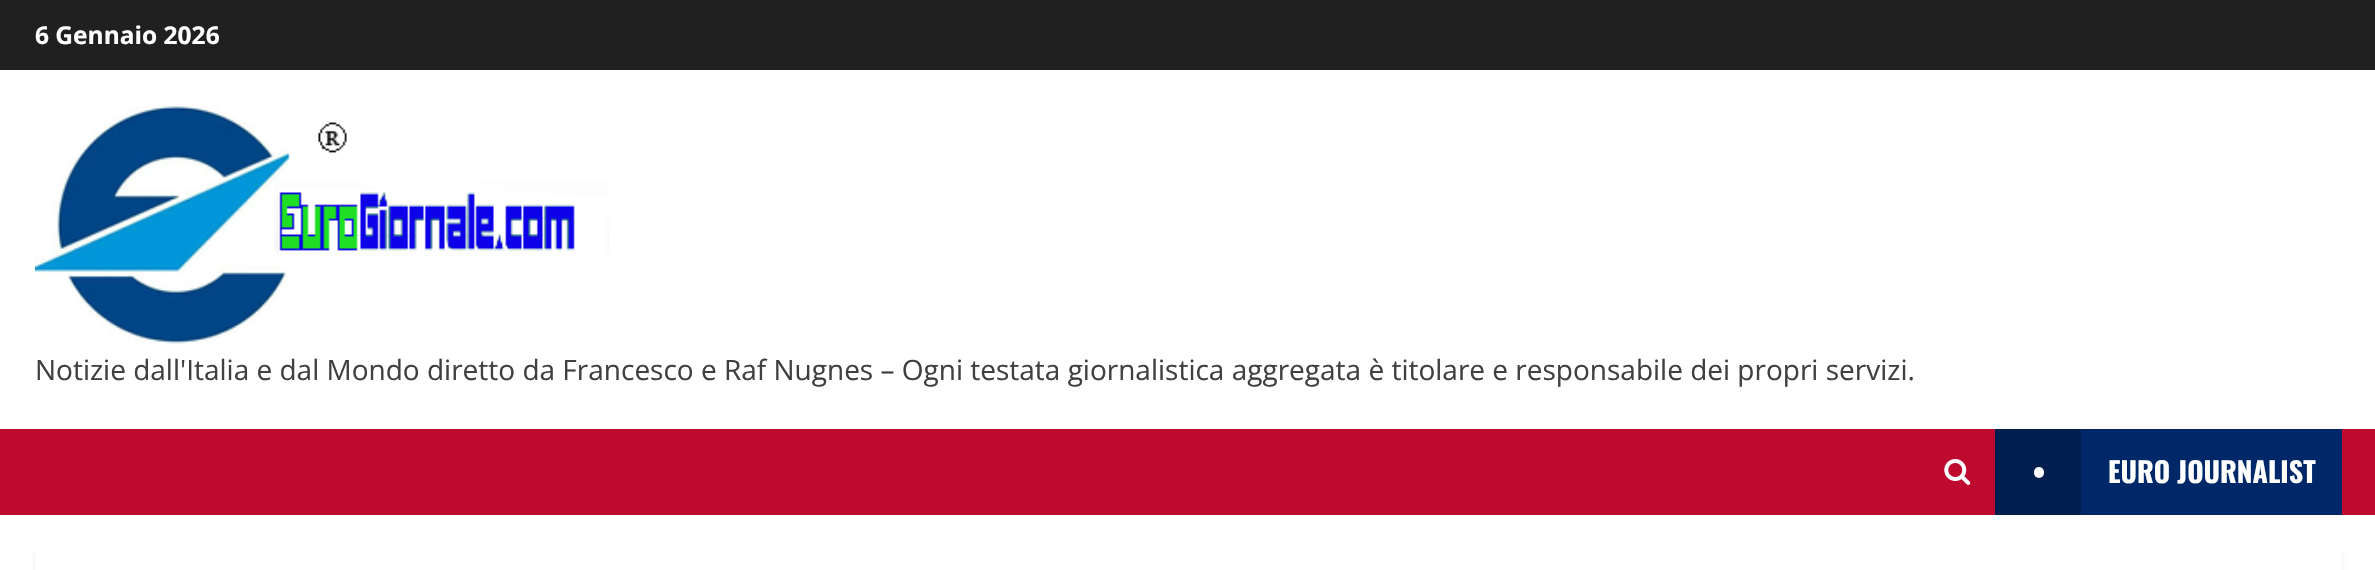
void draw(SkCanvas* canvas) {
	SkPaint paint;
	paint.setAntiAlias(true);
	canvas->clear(0xffffffff);
	paint.setColor(0xff202020);
	canvas->drawRect(SkRect::MakeXYWH(0, 0, 2375, 70), paint);
	SkFont f1(fontMgr->matchFamilyStyle("Open Sans", SkFontStyle::Bold()), 24.5);
	f1.setSubpixel(true);
	paint.setColor(0xffffffff);
	canvas->drawString("6 Gennaio 2026", 35, 44, f1, paint);
	canvas->drawImageRect(SkImages::DeferredFromEncodedData(SkData::MakeFromFileName("img1.png")), SkRect::MakeXYWH(35, 106, 574, 238), SkSamplingOptions());
	SkFont f2(fontMgr->matchFamilyStyle("Open Sans", SkFontStyle::Normal()), 28);
	f2.setSubpixel(true);
	paint.setColor(0xff404040);
	canvas->drawString("Notizie dall'Italia e dal Mondo diretto da Francesco e Raf Nugnes – Ogni testata giornalistica aggregata è titolare e responsabile dei propri servizi.", 35, 380, f2, paint);
	paint.setColor(0xffbf0a30);
	canvas->drawRect(SkRect::MakeXYWH(0, 429, 2375, 86), paint);
	canvas->drawImageRect(SkImages::DeferredFromEncodedData(SkData::MakeFromFileName("img2.png")), SkRect::MakeXYWH(1944, 459, 27, 26), SkSamplingOptions());
	paint.setColor(0xff002868);
	canvas->drawRect(SkRect::MakeXYWH(2081, 429, 261, 86), paint);
	paint.setColor(0xff001e4e);
	canvas->drawRect(SkRect::MakeXYWH(1995, 429, 86, 86), paint);
	paint.setColor(0xffffffff);
	canvas->drawRoundRect(SkRect::MakeXYWH(2034, 467, 10, 11), 5, 5, paint);
	SkFont f3(fontMgr->matchFamilyStyle("Oswald", SkFontStyle::Bold()), 28);
	f3.setSubpixel(true);
	canvas->drawString("EURO JOURNALIST", 2108, 483, f3, paint);
	paint.setColor(0x14000000);
	paint.setMaskFilter(SkMaskFilter::MakeBlur(kNormal_SkBlurStyle, 2));
	canvas->drawRect(SkRect::MakeXYWH(35, 553, 2307, 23), paint);
	paint.setMaskFilter(nullptr);
	paint.setColor(0xffffffff);
	canvas->drawRect(SkRect::MakeXYWH(35, 551, 2307, 19), paint);
}
